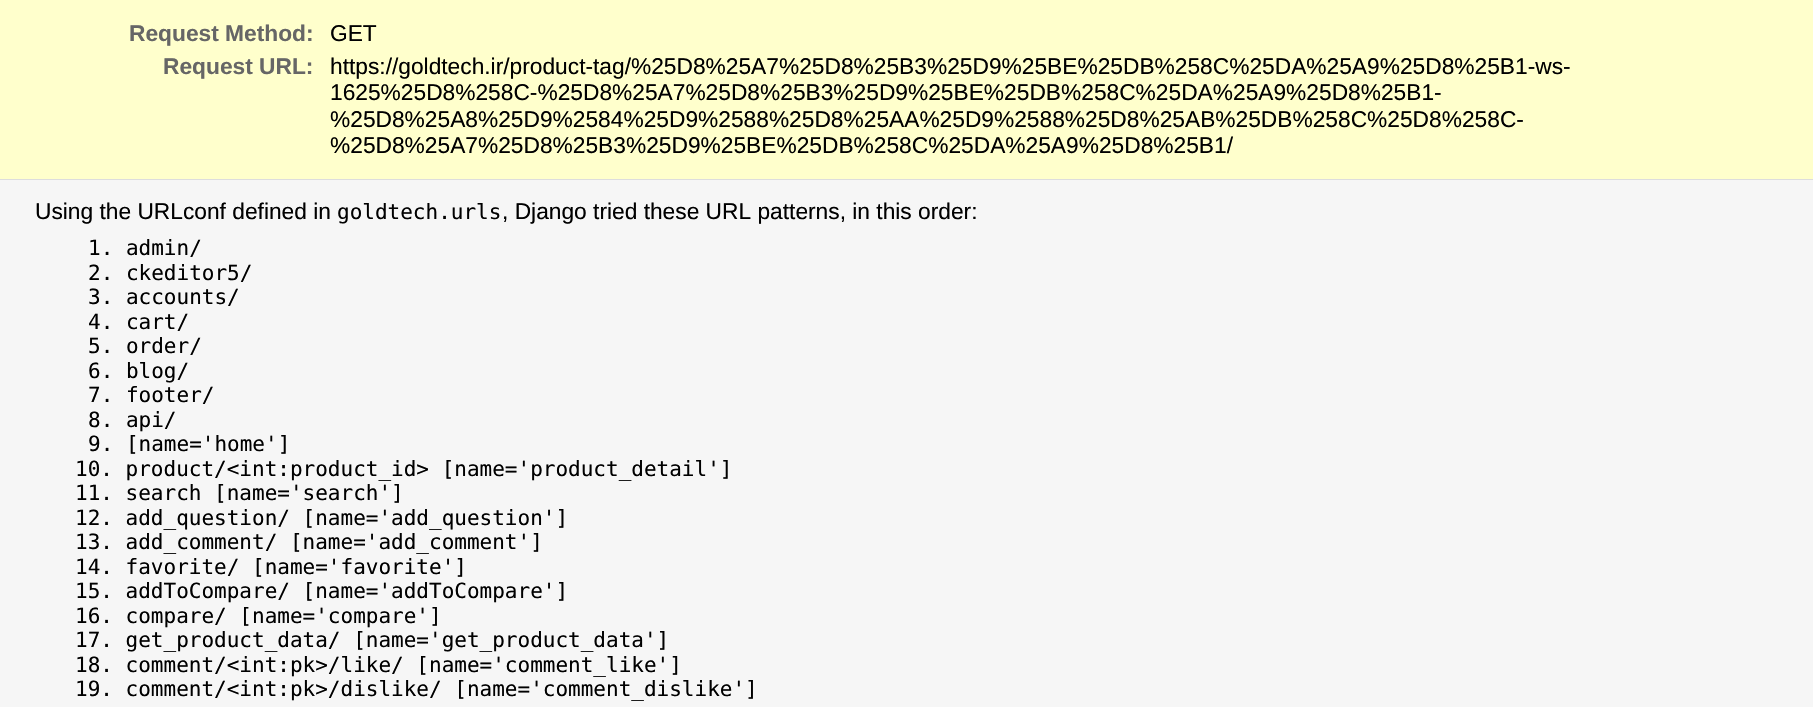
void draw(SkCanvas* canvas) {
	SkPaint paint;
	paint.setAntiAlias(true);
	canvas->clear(0xffffffcc);
	paint.setColor(0xffdddddd);
	canvas->drawRect(SkRect::MakeXYWH(0, 179, 1813, 1), paint);
	SkFont f1(fontMgr->matchFamilyStyle("Liberation Sans", SkFontStyle::Bold()), 22.75);
	f1.setSubpixel(true);
	paint.setColor(0xff666666);
	canvas->drawString("Request Method:", 129, 41, f1, paint);
	SkFont f2(fontMgr->matchFamilyStyle("Liberation Sans", SkFontStyle::Normal()), 22.75);
	f2.setSubpixel(true);
	paint.setColor(0xff000000);
	canvas->drawString("GET", 330, 41, f2, paint);
	paint.setColor(0xff666666);
	canvas->drawString("Request URL:", 163, 74, f1, paint);
	paint.setColor(0xff000000);
	canvas->drawString("https://goldtech.ir/product-tag/%25D8%25A7%25D8%25B3%25D9%25BE%25DB%258C%25DA%25A9%25D8%25B1-ws-", 330, 74, f2, paint);
	canvas->drawString("1625%25D8%258C-%25D8%25A7%25D8%25B3%25D9%25BE%25DB%258C%25DA%25A9%25D8%25B1-", 330, 100, f2, paint);
	canvas->drawString("%25D8%25A8%25D9%2584%25D9%2588%25D8%25AA%25D9%2588%25D8%25AB%25DB%258C%25D8%258C-", 330, 127, f2, paint);
	canvas->drawString("%25D8%25A7%25D8%25B3%25D9%25BE%25DB%258C%25DA%25A9%25D8%25B1/", 330, 153, f2, paint);
	paint.setColor(0xfff6f6f6);
	canvas->drawRect(SkRect::MakeXYWH(0, 180, 1813, 527), paint);
	paint.setColor(0xff000000);
	canvas->drawString("Using the URLconf defined in", 35, 219, f2, paint);
	SkFont f3(fontMgr->matchFamilyStyle("DejaVu Sans Mono", SkFontStyle::Normal()), 21);
	f3.setSubpixel(true);
	canvas->drawString("goldtech.urls", 337, 219, f3, paint);
	canvas->drawString(", Django tried these URL patterns, in this order:", 502, 219, f2, paint);
	canvas->drawString("1. admin/", 88, 255, f3, paint);
	canvas->drawString("2. ckeditor5/", 88, 280, f3, paint);
	canvas->drawString("3. accounts/", 88, 304, f3, paint);
	canvas->drawString("4. cart/", 88, 329, f3, paint);
	canvas->drawString("5. order/", 88, 353, f3, paint);
	canvas->drawString("6. blog/", 88, 378, f3, paint);
	canvas->drawString("7. footer/", 88, 402, f3, paint);
	canvas->drawString("8. api/", 88, 427, f3, paint);
	canvas->drawString("9. [name='home']", 88, 451, f3, paint);
	canvas->drawString("10. product/<int:product_id> [name='product_detail']", 75, 476, f3, paint);
	canvas->drawString("11. search [name='search']", 75, 500, f3, paint);
	canvas->drawString("12. add_question/ [name='add_question']", 75, 525, f3, paint);
	canvas->drawString("13. add_comment/ [name='add_comment']", 75, 549, f3, paint);
	canvas->drawString("14. favorite/ [name='favorite']", 75, 574, f3, paint);
	canvas->drawString("15. addToCompare/ [name='addToCompare']", 75, 598, f3, paint);
	canvas->drawString("16. compare/ [name='compare']", 75, 623, f3, paint);
	canvas->drawString("17. get_product_data/ [name='get_product_data']", 75, 647, f3, paint);
	canvas->drawString("18. comment/<int:pk>/like/ [name='comment_like']", 75, 672, f3, paint);
	canvas->drawString("19. comment/<int:pk>/dislike/ [name='comment_dislike']", 75, 696, f3, paint);
}
